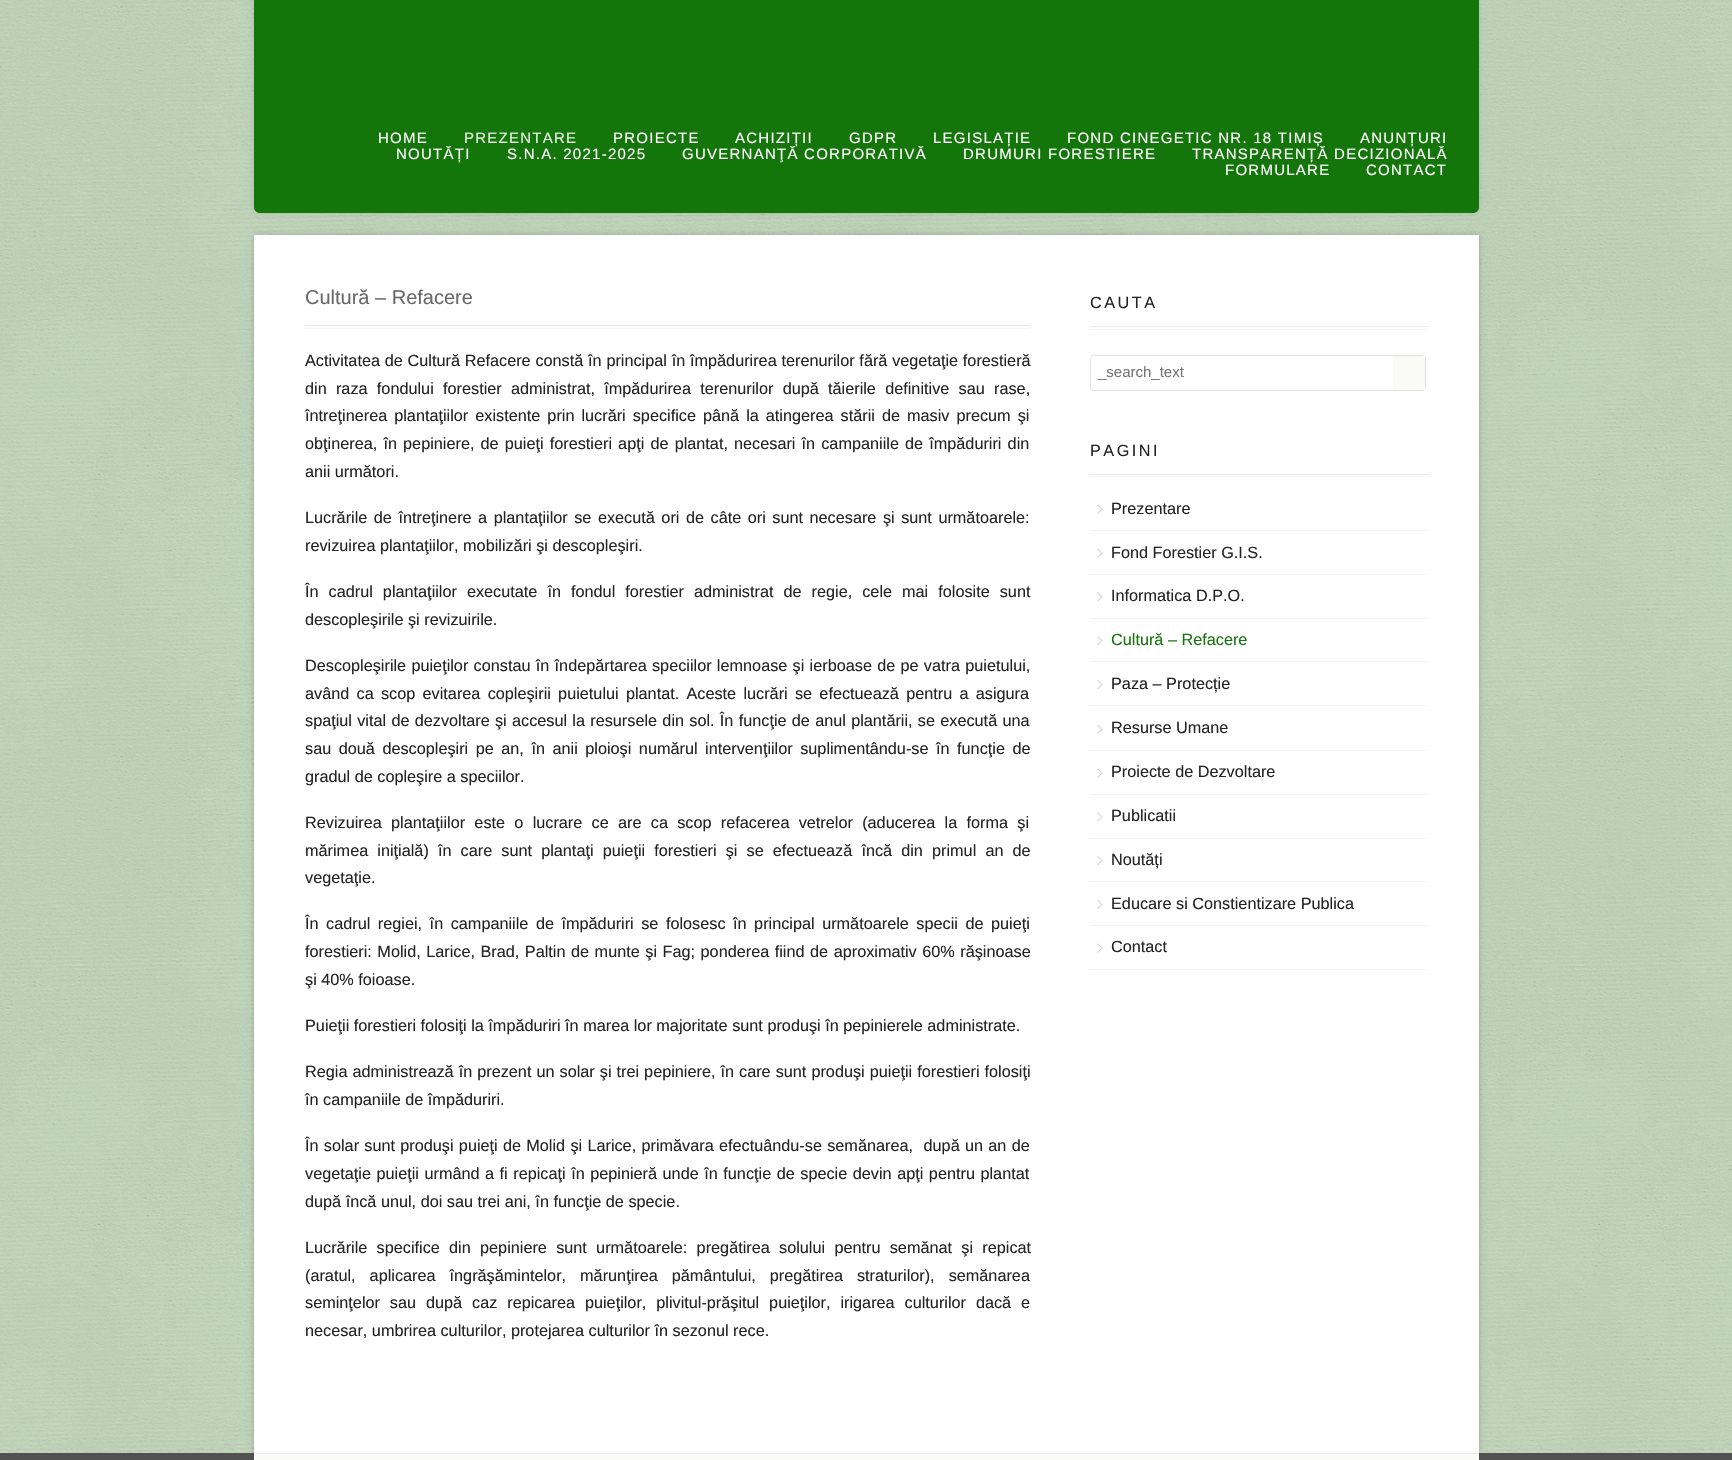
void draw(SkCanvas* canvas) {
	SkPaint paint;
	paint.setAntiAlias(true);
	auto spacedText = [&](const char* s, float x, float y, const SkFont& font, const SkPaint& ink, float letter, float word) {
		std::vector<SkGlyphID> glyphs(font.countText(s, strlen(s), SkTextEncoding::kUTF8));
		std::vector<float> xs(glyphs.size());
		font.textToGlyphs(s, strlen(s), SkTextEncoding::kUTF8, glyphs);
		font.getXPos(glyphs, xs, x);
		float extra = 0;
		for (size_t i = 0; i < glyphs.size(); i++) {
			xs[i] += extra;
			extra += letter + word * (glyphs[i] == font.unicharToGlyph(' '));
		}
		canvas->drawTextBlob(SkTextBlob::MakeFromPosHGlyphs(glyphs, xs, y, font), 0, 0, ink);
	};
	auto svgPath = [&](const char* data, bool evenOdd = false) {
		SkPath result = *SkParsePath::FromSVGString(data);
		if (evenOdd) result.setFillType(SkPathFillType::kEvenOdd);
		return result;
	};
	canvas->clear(0xffc6dbc0);
	canvas->drawImageRect(SkImages::DeferredFromEncodedData(SkData::MakeFromFileName("img1.png")), SkRect::MakeXYWH(0, 0, 1732, 1453), SkSamplingOptions());
	paint.setColor(0x1a000000);
	paint.setMaskFilter(SkMaskFilter::MakeBlur(kNormal_SkBlurStyle, 3));
	canvas->drawRoundRect(SkRect::MakeXYWH(254, 0, 1225, 213), 6, 6, paint);
	paint.setMaskFilter(nullptr);
	paint.setColor(0xff14750b);
	canvas->drawPath(svgPath("M254 0H1479V207C1479 210.5 1476.5 213 1473 213H260C256.5 213 254 210.5 254 207Z"), paint);
	SkFont f1(fontMgr->matchFamilyStyle("Liberation Sans", SkFontStyle::Normal()), 15);
	f1.setSubpixel(true);
	paint.setColor(0xffffffff);
	spacedText("HOME", 378, 143, f1, paint, 1.25, 0);
	paint.setColor(0xffe8f1e7);
	spacedText("PREZENTARE", 464, 143, f1, paint, 1.25, 0);
	paint.setColor(0xffffffff);
	spacedText("PROIECTE", 613, 143, f1, paint, 1.25, 0);
	spacedText("ACHIZIȚII", 735, 143, f1, paint, 1.25, 0);
	spacedText("GDPR", 849, 143, f1, paint, 1.25, 0);
	spacedText("LEGISLAȚIE", 933, 143, f1, paint, 1.25, 0);
	spacedText("FOND CINEGETIC NR. 18 TIMIȘ", 1067, 143, f1, paint, 1.25, 0);
	spacedText("ANUNȚURI", 1360, 143, f1, paint, 1.25, 0);
	spacedText("NOUTĂȚI", 396, 159, f1, paint, 1.25, 0);
	spacedText("S.N.A. 2021-2025", 507, 159, f1, paint, 1.25, 0);
	spacedText("GUVERNANŢĂ CORPORATIVĂ", 682, 159, f1, paint, 1.25, 0);
	spacedText("DRUMURI FORESTIERE", 963, 159, f1, paint, 1.25, 0);
	spacedText("TRANSPARENȚĂ DECIZIONALĂ", 1192, 159, f1, paint, 1.25, 0);
	spacedText("FORMULARE", 1225, 175, f1, paint, 1.25, 0);
	spacedText("CONTACT", 1366, 175, f1, paint, 1.25, 0);
	paint.setColor(0xff515151);
	canvas->drawRect(SkRect::MakeXYWH(0, 1453, 1732, 7), paint);
	paint.setColor(0x33000000);
	paint.setMaskFilter(SkMaskFilter::MakeBlur(kNormal_SkBlurStyle, 3));
	canvas->drawRect(SkRect::MakeXYWH(254, 235, 1225, 1218), paint);
	paint.setMaskFilter(nullptr);
	paint.setColor(0xffffffff);
	canvas->drawRect(SkRect::MakeXYWH(254, 235, 1225, 1218), paint);
	SkFont f2(fontMgr->matchFamilyStyle("Liberation Sans", SkFontStyle::Normal()), 20);
	f2.setSubpixel(true);
	paint.setColor(0xff686868);
	canvas->drawString("Cultură – Refacere", 305, 304, f2, paint);
	paint.setColor(0xffebebeb);
	canvas->drawRect(SkRect::MakeXYWH(305, 325, 725, 1), paint);
	paint.setColor(0xfff5f5f5);
	canvas->drawRect(SkRect::MakeXYWH(305, 328, 725, 1), paint);
	SkFont f3(fontMgr->matchFamilyStyle("Liberation Sans", SkFontStyle::Normal()), 16.25);
	f3.setSubpixel(true);
	paint.setColor(0xff242324);
	spacedText("Activitatea de Cultură Refacere constă în principal în împădurirea terenurilor fără vegetaţie forestieră", 305, 366, f3, paint, 0, 0.25);
	spacedText("din raza fondului forestier administrat, împădurirea terenurilor după tăierile definitive sau rase,", 305, 394, f3, paint, 0, 4.75);
	spacedText("întreţinerea plantaţiilor existente prin lucrări specifice până la atingerea stării de masiv precum şi", 305, 421, f3, paint, 0, 2.5);
	spacedText("obţinerea, în pepiniere, de puieţi forestieri apţi de plantat, necesari în campaniile de împăduriri din", 305, 449, f3, paint, 0, 1.6);
	canvas->drawString("anii următori.", 305, 477, f3, paint);
	spacedText("Lucrările de întreţinere a plantaţiilor se execută ori de câte ori sunt necesare şi sunt următoarele:", 305, 523, f3, paint, 0, 2);
	canvas->drawString("revizuirea plantaţiilor, mobilizări şi descopleşiri.", 305, 551, f3, paint);
	spacedText("În cadrul plantaţiilor executate în fondul forestier administrat de regie, cele mai folosite sunt", 305, 597, f3, paint, 0, 5.5);
	canvas->drawString("descopleşirile şi revizuirile.", 305, 625, f3, paint);
	spacedText("Descopleşirile puieţilor constau în îndepărtarea speciilor lemnoase şi ierboase de pe vatra puietului,", 305, 671, f3, paint, 0, 0.75);
	spacedText("având ca scop evitarea copleşirii puietului plantat. Aceste lucrări se efectuează pentru a asigura", 305, 699, f3, paint, 0, 2.75);
	spacedText("spaţiul vital de dezvoltare şi accesul la resursele din sol. În funcţie de anul plantării, se execută una", 305, 726, f3, paint, 0, 0.75);
	spacedText("sau două descopleşiri pe an, în anii ploioşi numărul intervenţiilor suplimentându-se în funcţie de", 305, 754, f3, paint, 0, 3);
	canvas->drawString("gradul de copleşire a speciilor.", 305, 782, f3, paint);
	spacedText("Revizuirea plantaţiilor este o lucrare ce are ca scop refacerea vetrelor (aducerea la forma şi", 305, 828, f3, paint, 0, 4.75);
	spacedText("mărimea iniţială) în care sunt plantaţi puieţii forestieri şi se efectuează încă din primul an de", 305, 856, f3, paint, 0, 4.6);
	canvas->drawString("vegetaţie.", 305, 883, f3, paint);
	spacedText("În cadrul regiei, în campaniile de împăduriri se folosesc în principal următoarele specii de puieţi", 305, 929, f3, paint, 0, 3);
	spacedText("forestieri: Molid, Larice, Brad, Paltin de munte şi Fag; ponderea fiind de aproximativ 60% răşinoase", 305, 957, f3, paint, 0, 1);
	canvas->drawString("şi 40% foioase.", 305, 985, f3, paint);
	canvas->drawString("Puieţii forestieri folosiţi la împăduriri în marea lor majoritate sunt produşi în pepinierele administrate.", 305, 1031, f3, paint);
	spacedText("Regia administrează în prezent un solar şi trei pepiniere, în care sunt produşi puieţii forestieri folosiţi", 305, 1077, f3, paint, 0, 0.5);
	canvas->drawString("în campaniile de împăduriri.", 305, 1105, f3, paint);
	spacedText("În solar sunt produşi puieţi de Molid şi Larice, primăvara efectuându-se semănarea,  după un an de", 305, 1151, f3, paint, 0, 0.75);
	spacedText("vegetaţie puieţii urmând a fi repicaţi în pepinieră unde în funcţie de specie devin apţi pentru plantat", 305, 1179, f3, paint, 0, 1);
	canvas->drawString("după încă unul, doi sau trei ani, în funcţie de specie.", 305, 1207, f3, paint);
	spacedText("Lucrările specifice din pepiniere sunt următoarele: pregătirea solului pentru semănat şi repicat", 305, 1253, f3, paint, 0, 4.75);
	spacedText("(aratul, aplicarea îngrăşămintelor, mărunţirea pământului, pregătirea straturilor), semănarea", 305, 1281, f3, paint, 0, 9.5);
	spacedText("seminţelor sau după caz repicarea puieţilor, plivitul-prăşitul puieţilor, irigarea culturilor dacă e", 305, 1308, f3, paint, 0, 5.4);
	canvas->drawString("necesar, umbrirea culturilor, protejarea culturilor în sezonul rece.", 305, 1336, f3, paint);
	spacedText("CAUTA", 1090, 308, f3, paint, 2.5, 0);
	paint.setColor(0xffebebeb);
	canvas->drawRect(SkRect::MakeXYWH(1090, 326, 338, 1), paint);
	paint.setColor(0xfff5f5f5);
	canvas->drawRect(SkRect::MakeXYWH(1090, 329, 338, 1), paint);
	paint.setStroke(true);
	paint.setStrokeWidth(1);
	paint.setColor(0xffe2e2e2);
	canvas->drawRoundRect(SkRect::MakeXYWH(1090.5, 355.5, 335, 35), 3.5, 3.5, paint);
	paint.setStroke(false);
	paint.setColor(0xff757575);
	canvas->drawString("_search_text", 1098, 377, f1, paint);
	paint.setColor(0xfffafaf7);
	canvas->drawRect(SkRect::MakeXYWH(1393, 356, 32, 34), paint);
	paint.setColor(0xff242324);
	spacedText("PAGINI", 1090, 456, f3, paint, 2.5, 0);
	paint.setColor(0xffebebeb);
	canvas->drawRect(SkRect::MakeXYWH(1090, 474, 338, 1), paint);
	paint.setColor(0xfff5f5f5);
	canvas->drawRect(SkRect::MakeXYWH(1090, 476, 338, 1), paint);
	canvas->drawImageRect(SkImages::DeferredFromEncodedData(SkData::MakeFromFileName("img2.png")), SkRect::MakeXYWH(1097, 505, 6, 9), SkSamplingOptions());
	paint.setColor(0xfff3f3f3);
	canvas->drawRect(SkRect::MakeXYWH(1090, 530, 338, 1), paint);
	paint.setColor(0xff242324);
	canvas->drawString("Prezentare", 1111, 514, f3, paint);
	canvas->drawImageRect(SkImages::DeferredFromEncodedData(SkData::MakeFromFileName("img3.png")), SkRect::MakeXYWH(1097, 548, 6, 10), SkSamplingOptions());
	paint.setColor(0xfff3f3f3);
	canvas->drawRect(SkRect::MakeXYWH(1090, 574, 338, 1), paint);
	paint.setColor(0xff242324);
	canvas->drawString("Fond Forestier G.I.S.", 1111, 558, f3, paint);
	canvas->drawImageRect(SkImages::DeferredFromEncodedData(SkData::MakeFromFileName("img4.png")), SkRect::MakeXYWH(1097, 592, 6, 10), SkSamplingOptions());
	paint.setColor(0xfff3f3f3);
	canvas->drawRect(SkRect::MakeXYWH(1090, 618, 338, 1), paint);
	paint.setColor(0xff242324);
	canvas->drawString("Informatica D.P.O.", 1111, 601, f3, paint);
	canvas->drawImageRect(SkImages::DeferredFromEncodedData(SkData::MakeFromFileName("img5.png")), SkRect::MakeXYWH(1097, 636, 6, 9), SkSamplingOptions());
	paint.setColor(0xfff3f3f3);
	canvas->drawRect(SkRect::MakeXYWH(1090, 661, 338, 1), paint);
	paint.setColor(0xff14750b);
	canvas->drawString("Cultură – Refacere", 1111, 645, f3, paint);
	canvas->drawImageRect(SkImages::DeferredFromEncodedData(SkData::MakeFromFileName("img2.png")), SkRect::MakeXYWH(1097, 680, 6, 9), SkSamplingOptions());
	paint.setColor(0xfff3f3f3);
	canvas->drawRect(SkRect::MakeXYWH(1090, 705, 338, 1), paint);
	paint.setColor(0xff242324);
	canvas->drawString("Paza – Protecție", 1111, 689, f3, paint);
	canvas->drawImageRect(SkImages::DeferredFromEncodedData(SkData::MakeFromFileName("img2.png")), SkRect::MakeXYWH(1097, 725, 6, 9), SkSamplingOptions());
	paint.setColor(0xfff3f3f3);
	canvas->drawRect(SkRect::MakeXYWH(1090, 750, 338, 1), paint);
	paint.setColor(0xff242324);
	canvas->drawString("Resurse Umane", 1111, 733, f3, paint);
	canvas->drawImageRect(SkImages::DeferredFromEncodedData(SkData::MakeFromFileName("img3.png")), SkRect::MakeXYWH(1097, 768, 6, 10), SkSamplingOptions());
	paint.setColor(0xfff3f3f3);
	canvas->drawRect(SkRect::MakeXYWH(1090, 794, 338, 1), paint);
	paint.setColor(0xff242324);
	canvas->drawString("Proiecte de Dezvoltare", 1111, 777, f3, paint);
	canvas->drawImageRect(SkImages::DeferredFromEncodedData(SkData::MakeFromFileName("img4.png")), SkRect::MakeXYWH(1097, 812, 6, 10), SkSamplingOptions());
	paint.setColor(0xfff3f3f3);
	canvas->drawRect(SkRect::MakeXYWH(1090, 838, 338, 1), paint);
	paint.setColor(0xff242324);
	canvas->drawString("Publicatii", 1111, 821, f3, paint);
	canvas->drawImageRect(SkImages::DeferredFromEncodedData(SkData::MakeFromFileName("img5.png")), SkRect::MakeXYWH(1097, 856, 6, 9), SkSamplingOptions());
	paint.setColor(0xfff3f3f3);
	canvas->drawRect(SkRect::MakeXYWH(1090, 881, 338, 1), paint);
	paint.setColor(0xff242324);
	canvas->drawString("Noutăți", 1111, 865, f3, paint);
	canvas->drawImageRect(SkImages::DeferredFromEncodedData(SkData::MakeFromFileName("img2.png")), SkRect::MakeXYWH(1097, 900, 6, 9), SkSamplingOptions());
	paint.setColor(0xfff3f3f3);
	canvas->drawRect(SkRect::MakeXYWH(1090, 925, 338, 1), paint);
	paint.setColor(0xff242324);
	canvas->drawString("Educare si Constientizare Publica", 1111, 909, f3, paint);
	canvas->drawImageRect(SkImages::DeferredFromEncodedData(SkData::MakeFromFileName("img3.png")), SkRect::MakeXYWH(1097, 943, 6, 10), SkSamplingOptions());
	paint.setColor(0xfff3f3f3);
	canvas->drawRect(SkRect::MakeXYWH(1090, 969, 338, 1), paint);
	paint.setColor(0xff242324);
	canvas->drawString("Contact", 1111, 952, f3, paint);
	paint.setColor(0xfffafaf7);
	canvas->drawRect(SkRect::MakeXYWH(254, 1454, 1225, 6), paint);
	paint.setColor(0xffe8e8e8);
	canvas->drawRect(SkRect::MakeXYWH(254, 1453, 1225, 1), paint);
	paint.setColor(0xffffffff);
	canvas->drawRect(SkRect::MakeXYWH(1478, 1453, 1, 7), paint);
	canvas->drawRect(SkRect::MakeXYWH(254, 1453, 1, 7), paint);
}
